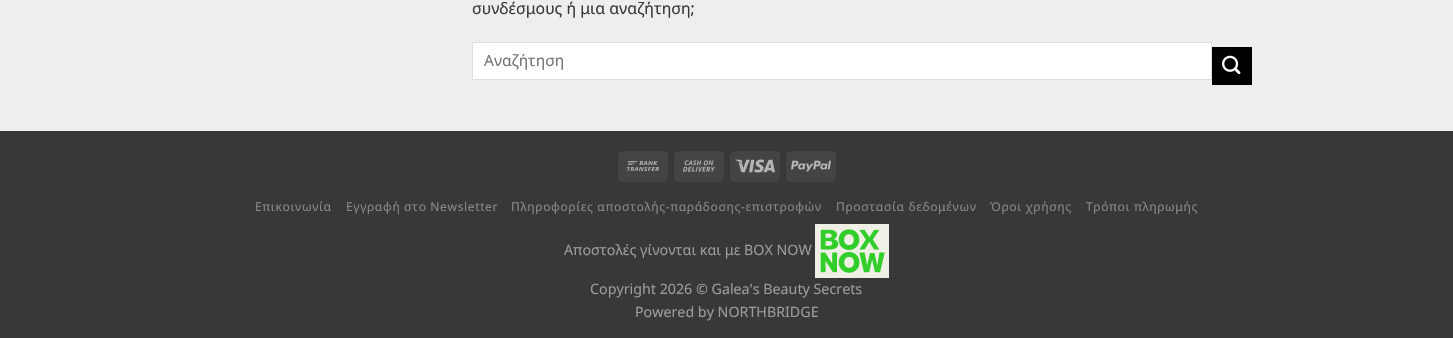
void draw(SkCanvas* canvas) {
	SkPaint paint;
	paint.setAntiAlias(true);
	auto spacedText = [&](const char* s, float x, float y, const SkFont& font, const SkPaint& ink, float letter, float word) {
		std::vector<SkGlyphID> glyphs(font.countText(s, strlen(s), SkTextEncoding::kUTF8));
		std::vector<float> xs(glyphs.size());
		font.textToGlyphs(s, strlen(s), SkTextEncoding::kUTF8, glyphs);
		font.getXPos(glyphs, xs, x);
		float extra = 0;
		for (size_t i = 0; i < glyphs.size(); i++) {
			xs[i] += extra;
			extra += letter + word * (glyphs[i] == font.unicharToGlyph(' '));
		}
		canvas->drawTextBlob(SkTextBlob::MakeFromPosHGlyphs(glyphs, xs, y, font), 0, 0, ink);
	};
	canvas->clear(0xffeeeeee);
	SkFont f1(fontMgr->matchFamilyStyle("Noto Sans", SkFontStyle::Normal()), 15.8);
	f1.setSubpixel(true);
	paint.setColor(0xff383838);
	canvas->drawString("συνδέσμους ή μια αναζήτηση;", 472, 14, f1, paint);
	paint.setColor(0xffffffff);
	canvas->drawRect(SkRect::MakeXYWH(472.5, 42.5, 739, 37), paint);
	paint.setStroke(true);
	paint.setStrokeWidth(1);
	paint.setColor(0xffdddddd);
	canvas->drawRect(SkRect::MakeXYWH(472.5, 42.5, 739, 37), paint);
	SkFont f2(fontMgr->matchFamilyStyle("Noto Sans", SkFontStyle::Normal()), 15.5);
	f2.setSubpixel(true);
	paint.setStroke(false);
	paint.setColor(0xff757575);
	canvas->drawString("Αναζήτηση", 484, 66, f2, paint);
	paint.setColor(0xff000000);
	canvas->drawRect(SkRect::MakeXYWH(1212, 47, 40, 38), paint);
	canvas->drawImageRect(SkImages::DeferredFromEncodedData(SkData::MakeFromFileName("img1.png")), SkRect::MakeXYWH(1222, 55, 19, 20), SkSamplingOptions());
	paint.setColor(0xff383838);
	canvas->drawRect(SkRect::MakeXYWH(0, 131, 1453, 207), paint);
	paint.setColor(0xff444444);
	canvas->drawRoundRect(SkRect::MakeXYWH(618, 151, 50, 31), 5, 5, paint);
	canvas->drawImageRect(SkImages::DeferredFromEncodedData(SkData::MakeFromFileName("img2.png")), SkRect::MakeXYWH(627, 161, 32, 10), SkSamplingOptions());
	canvas->drawRoundRect(SkRect::MakeXYWH(674, 151, 50, 31), 5, 5, paint);
	canvas->drawImageRect(SkImages::DeferredFromEncodedData(SkData::MakeFromFileName("img3.png")), SkRect::MakeXYWH(683, 160, 32, 12), SkSamplingOptions());
	canvas->drawRoundRect(SkRect::MakeXYWH(730, 151, 50, 31), 5, 5, paint);
	canvas->drawImageRect(SkImages::DeferredFromEncodedData(SkData::MakeFromFileName("img4.png")), SkRect::MakeXYWH(735, 159, 40, 14), SkSamplingOptions());
	canvas->drawRoundRect(SkRect::MakeXYWH(786, 151, 50, 31), 5, 5, paint);
	canvas->drawImageRect(SkImages::DeferredFromEncodedData(SkData::MakeFromFileName("img5.png")), SkRect::MakeXYWH(791, 160, 40, 12), SkSamplingOptions());
	SkFont f3(fontMgr->matchFamilyStyle("Noto Sans", SkFontStyle::Normal()), 12.1);
	f3.setSubpixel(true);
	paint.setColor(0xff888888);
	spacedText("Επικοινωνία", 255, 211, f3, paint, 0.6, 0);
	spacedText("Εγγραφή στο Newsletter", 346, 211, f3, paint, 0.6, 0);
	spacedText("Πληροφορίες αποστολής-παράδοσης-επιστροφών", 511, 211, f3, paint, 0.6, 0);
	spacedText("Προστασία δεδομένων", 836, 211, f3, paint, 0.6, 0);
	spacedText("Όροι χρήσης", 990, 211, f3, paint, 0.6, 0);
	spacedText("Τρόποι πληρωμής", 1086, 211, f3, paint, 0.6, 0);
	SkFont f4(fontMgr->matchFamilyStyle("Noto Sans", SkFontStyle::Normal()), 14.25);
	f4.setSubpixel(true);
	paint.setColor(0xff9c9c9c);
	canvas->drawString("Αποστολές γίνονται και με BOX NOW", 564, 255, f4, paint);
	canvas->drawImageRect(SkImages::DeferredFromEncodedData(SkData::MakeFromFileName("img6.png")), SkRect::MakeXYWH(815, 224, 74, 54), SkSamplingOptions());
	canvas->drawString("Copyright 2026 © Galea's Beauty Secrets", 590, 294, f4, paint);
	canvas->drawString("Powered by NORTHBRIDGE", 635, 317, f4, paint);
}
